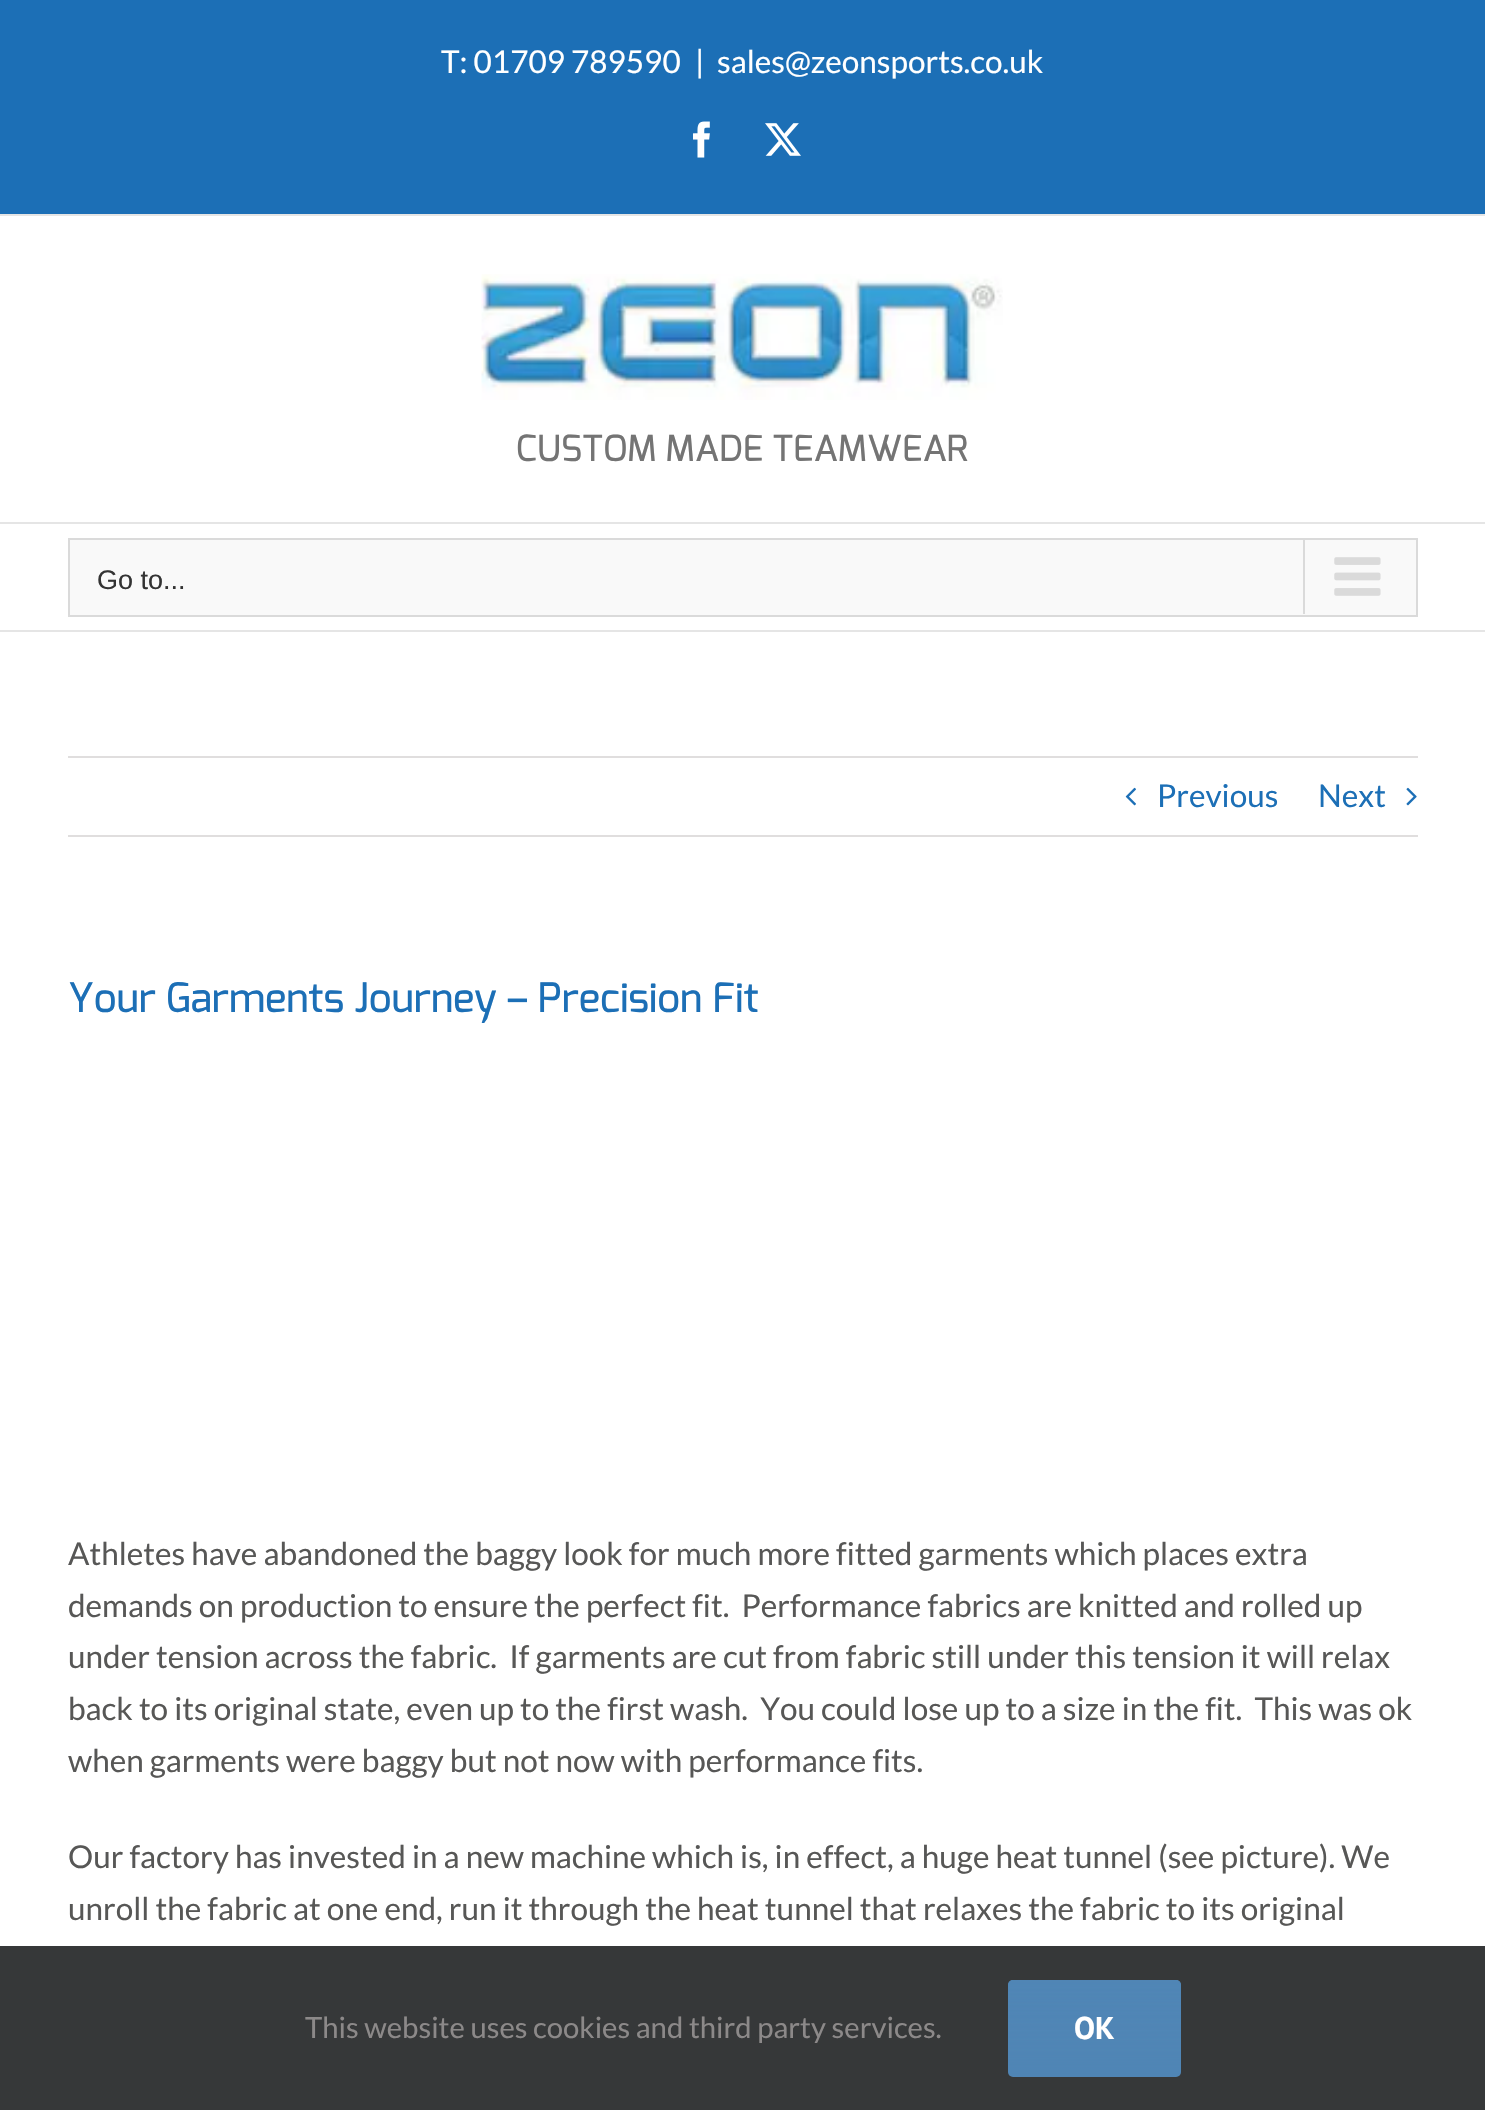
void draw(SkCanvas* canvas) {
	SkPaint paint;
	paint.setAntiAlias(true);
	canvas->clear(0xffffffff);
	paint.setColor(0xff1c6fb6);
	canvas->drawRect(SkRect::MakeXYWH(0, 0, 1485, 214), paint);
	paint.setColor(0xffe5e5e5);
	canvas->drawRect(SkRect::MakeXYWH(0, 214, 1485, 2), paint);
	SkFont f1(fontMgr->matchFamilyStyle("Lato", SkFontStyle::Normal()), 31.5);
	f1.setSubpixel(true);
	paint.setColor(0xffffffff);
	canvas->drawString("T: 01709 789590", 441, 73, f1, paint);
	canvas->drawString("|", 695, 73, f1, paint);
	canvas->drawString("sales@zeonsports.co.uk", 717, 73, f1, paint);
	canvas->drawImageRect(SkImages::DeferredFromEncodedData(SkData::MakeFromFileName("img1.png")), SkRect::MakeXYWH(693, 121, 17, 37), SkSamplingOptions());
	canvas->drawImageRect(SkImages::DeferredFromEncodedData(SkData::MakeFromFileName("img2.png")), SkRect::MakeXYWH(765, 123, 36, 33), SkSamplingOptions());
	paint.setColor(0xffe5e5e5);
	canvas->drawRect(SkRect::MakeXYWH(0, 522, 1485, 2), paint);
	canvas->drawImageRect(SkImages::DeferredFromEncodedData(SkData::MakeFromFileName("img3.png")), SkRect::MakeXYWH(481, 274, 522, 126), SkSamplingOptions());
	SkFont f2(fontMgr->matchFamilyStyle("Exo", SkFontStyle(500, SkFontStyle::kNormal_Width, SkFontStyle::kUpright_Slant)), 36);
	f2.setSubpixel(true);
	paint.setColor(0xff747474);
	canvas->drawString("CUSTOM MADE TEAMWEAR", 516, 461, f2, paint);
	paint.setColor(0xffe5e5e5);
	canvas->drawRect(SkRect::MakeXYWH(0, 630, 1485, 2), paint);
	paint.setColor(0xfff9f9f9);
	canvas->drawRect(SkRect::MakeXYWH(69, 539, 1348, 77), paint);
	paint.setStroke(true);
	paint.setStrokeWidth(2);
	paint.setColor(0xffdadada);
	canvas->drawRect(SkRect::MakeXYWH(69, 539, 1348, 77), paint);
	SkFont f3(fontMgr->matchFamilyStyle("Liberation Sans", SkFontStyle::Normal()), 27);
	f3.setSubpixel(true);
	paint.setStroke(false);
	paint.setColor(0xff333333);
	canvas->drawString("Go to...", 97, 589, f3, paint);
	paint.setColor(0xffdadada);
	canvas->drawRect(SkRect::MakeXYWH(1303, 540, 2, 74), paint);
	canvas->drawImageRect(SkImages::DeferredFromEncodedData(SkData::MakeFromFileName("img4.png")), SkRect::MakeXYWH(1334, 557, 47, 39), SkSamplingOptions());
	paint.setColor(0xffe0dede);
	canvas->drawRect(SkRect::MakeXYWH(68, 756, 1350, 2), paint);
	canvas->drawRect(SkRect::MakeXYWH(68, 835, 1350, 2), paint);
	canvas->drawImageRect(SkImages::DeferredFromEncodedData(SkData::MakeFromFileName("img5.png")), SkRect::MakeXYWH(1125, 787, 11, 19), SkSamplingOptions());
	paint.setColor(0xff1c6fb6);
	canvas->drawString("Previous", 1157, 807, f1, paint);
	canvas->drawString("Next", 1318, 807, f1, paint);
	canvas->drawImageRect(SkImages::DeferredFromEncodedData(SkData::MakeFromFileName("img6.png")), SkRect::MakeXYWH(1406, 787, 11, 19), SkSamplingOptions());
	SkFont f4(fontMgr->matchFamilyStyle("Exo", SkFontStyle(500, SkFontStyle::kNormal_Width, SkFontStyle::kUpright_Slant)), 40.5);
	f4.setSubpixel(true);
	canvas->drawString("Your Garments Journey – Precision Fit", 68, 1012, f4, paint);
	paint.setColor(0xff575756);
	canvas->drawString("Athletes have abandoned the baggy look for much more fitted garments which places extra", 68, 1565, f1, paint);
	canvas->drawString("demands on production to ensure the perfect fit.  Performance fabrics are knitted and rolled up", 68, 1617, f1, paint);
	canvas->drawString("under tension across the fabric.  If garments are cut from fabric still under this tension it will relax", 68, 1668, f1, paint);
	canvas->drawString("back to its original state, even up to the first wash.  You could lose up to a size in the fit.  This was ok", 68, 1720, f1, paint);
	canvas->drawString("when garments were baggy but not now with performance fits.", 68, 1772, f1, paint);
	canvas->drawString("Our factory has invested in a new machine which is, in effect, a huge heat tunnel (see picture). We", 68, 1868, f1, paint);
	canvas->drawString("unroll the fabric at one end, run it through the heat tunnel that relaxes the fabric to its original", 68, 1920, f1, paint);
	paint.setColor(0xff363839);
	canvas->drawRect(SkRect::MakeXYWH(0, 1946, 1485, 164), paint);
	SkFont f5(fontMgr->matchFamilyStyle("Lato", SkFontStyle::Normal()), 29.25);
	f5.setSubpixel(true);
	paint.setColor(0xff8c8989);
	canvas->drawString("This website uses cookies and third party services.", 305, 2038, f5, paint);
	paint.setColor(0xff4f85b5);
	canvas->drawRoundRect(SkRect::MakeXYWH(1008, 1980, 173, 97), 5, 5, paint);
	{
		const SkColor colors[] = {0xff4f85b5, 0x004f85b5};
		const float stops[] = {0, 1};
		const SkPoint ends[] = {{1095, 1980}, {1095, 2077}};
		paint.setShader(SkGradientShader::MakeLinear(ends, colors, stops, 2, SkTileMode::kClamp));
		paint.setAlpha(255);
	}
	canvas->drawRoundRect(SkRect::MakeXYWH(1008, 1980, 173, 97), 5, 5, paint);
	SkFont f6(fontMgr->matchFamilyStyle("PT Sans", SkFontStyle::Bold()), 31.5);
	f6.setSubpixel(true);
	paint.setShader(nullptr);
	paint.setColor(0xffffffff);
	canvas->drawString("OK", 1074, 2039, f6, paint);
}
